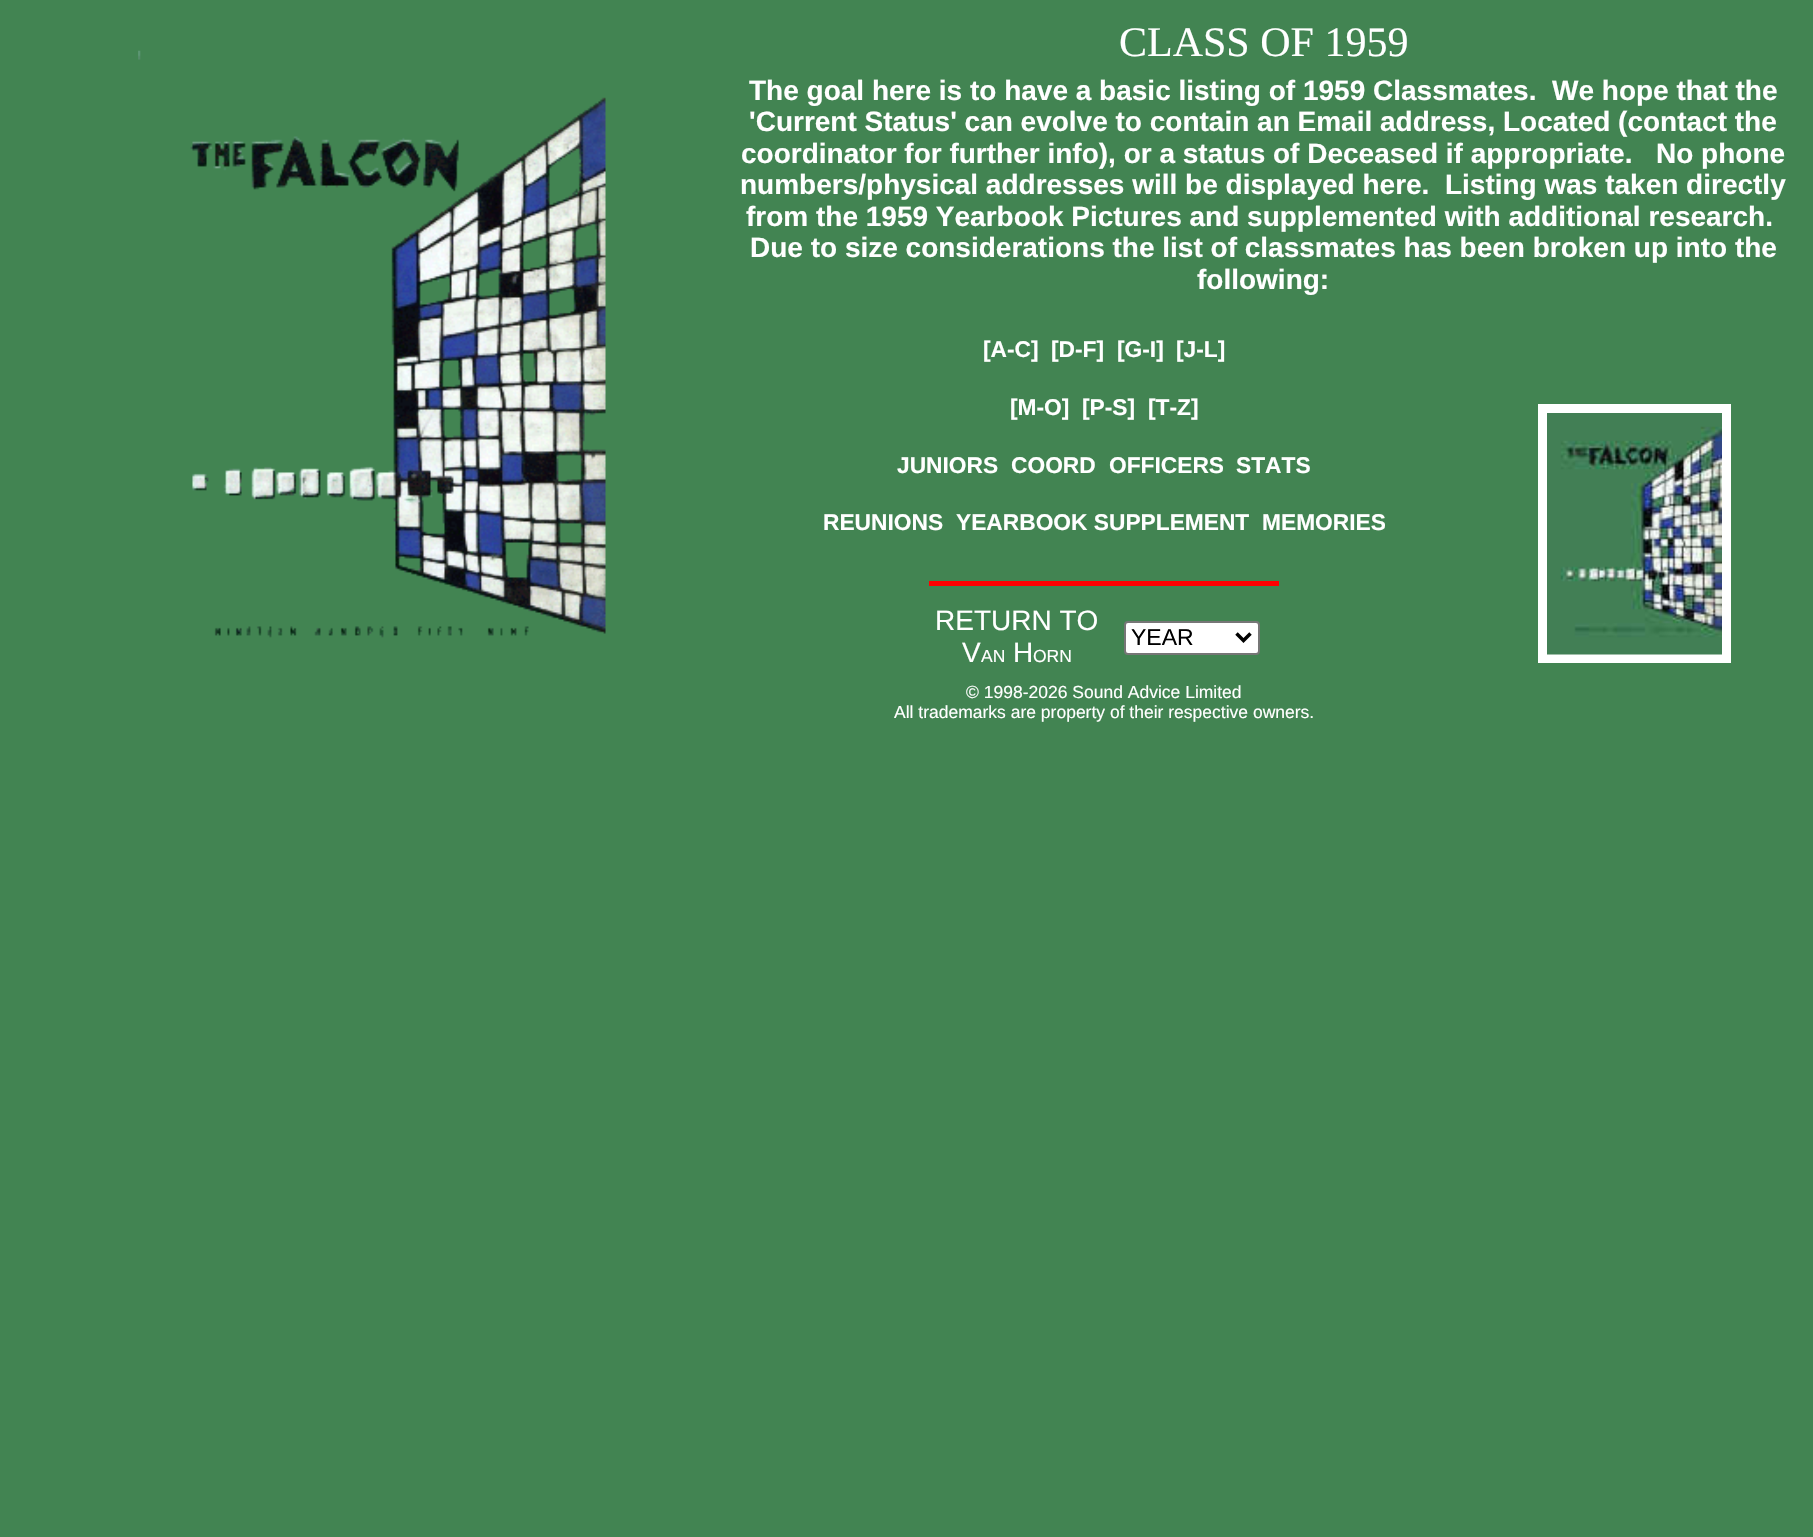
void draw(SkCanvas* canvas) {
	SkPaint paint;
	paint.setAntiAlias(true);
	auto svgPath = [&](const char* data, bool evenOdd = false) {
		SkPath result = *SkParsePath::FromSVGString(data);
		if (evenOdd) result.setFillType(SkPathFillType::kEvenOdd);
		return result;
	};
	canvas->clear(0xff428452);
	SkFont f1(fontMgr->matchFamilyStyle("Liberation Serif", SkFontStyle::Normal()), 42);
	f1.setSubpixel(true);
	paint.setColor(0xffffffff);
	canvas->drawString("CLASS OF 1959", 1119, 56, f1, paint);
	canvas->drawImageRect(SkImages::DeferredFromEncodedData(SkData::MakeFromFileName("img1.png")), SkRect::MakeXYWH(138, 50, 468, 588), SkSamplingOptions());
	SkFont f2(fontMgr->matchFamilyStyle("Liberation Sans", SkFontStyle::Bold()), 28);
	f2.setSubpixel(true);
	canvas->drawString("The goal here is to have a basic listing of 1959 Classmates.", 749, 100, f2, paint);
	canvas->drawString("We hope that the", 1552, 100, f2, paint);
	canvas->drawString("'Current Status' can evolve to contain an Email address, Located (contact the", 749, 131, f2, paint);
	canvas->drawString("coordinator for further info), or a status of Deceased if appropriate.", 741, 163, f2, paint);
	canvas->drawString("No phone", 1656, 163, f2, paint);
	canvas->drawString("numbers/physical addresses will be displayed here.  Listing was taken directly", 740, 194, f2, paint);
	canvas->drawString("from the 1959 Yearbook Pictures and supplemented with additional research.", 746, 226, f2, paint);
	canvas->drawString("Due to size considerations the list of classmates has been broken up into the", 750, 257, f2, paint);
	canvas->drawString("following:", 1197, 289, f2, paint);
	SkFont f3(fontMgr->matchFamilyStyle("Liberation Sans", SkFontStyle::Bold()), 22.75);
	f3.setSubpixel(true);
	canvas->drawString("[A-C]", 983, 357, f3, paint);
	canvas->drawString("[D-F]", 1051, 357, f3, paint);
	canvas->drawString("[G-I]", 1117, 357, f3, paint);
	canvas->drawString("[J-L]", 1176, 357, f3, paint);
	paint.setStroke(true);
	paint.setStrokeWidth(9);
	canvas->drawRect(SkRect::MakeXYWH(1542.5, 408.5, 184, 250), paint);
	canvas->drawImageRect(SkImages::DeferredFromEncodedData(SkData::MakeFromFileName("img2.png")), SkRect::MakeXYWH(1547, 413, 175, 242), SkSamplingOptions());
	paint.setStroke(false);
	canvas->drawString("[M-O]", 1010, 415, f3, paint);
	canvas->drawString("[P-S]", 1082, 415, f3, paint);
	canvas->drawString("[T-Z]", 1148, 415, f3, paint);
	canvas->drawString("JUNIORS", 897, 473, f3, paint);
	canvas->drawString("COORD", 1011, 473, f3, paint);
	canvas->drawString("OFFICERS", 1109, 473, f3, paint);
	canvas->drawString("STATS", 1236, 473, f3, paint);
	canvas->drawString("REUNIONS", 823, 530, f3, paint);
	canvas->drawString("YEARBOOK SUPPLEMENT", 956, 530, f3, paint);
	canvas->drawString("MEMORIES", 1262, 530, f3, paint);
	paint.setColor(0xffff0000);
	canvas->drawRect(SkRect::MakeXYWH(929, 581, 350, 5), paint);
	SkFont f4(fontMgr->matchFamilyStyle("Liberation Sans", SkFontStyle::Normal()), 28);
	f4.setSubpixel(true);
	paint.setColor(0xffffffff);
	canvas->drawString("RETURN TO", 935, 630, f4, paint);
	canvas->drawString("V", 962, 662, f4, paint);
	SkFont f5(fontMgr->matchFamilyStyle("Liberation Sans", SkFontStyle::Normal()), 17.5);
	f5.setSubpixel(true);
	canvas->drawString("AN", 981, 662, f5, paint);
	canvas->drawString("H", 1013, 662, f4, paint);
	canvas->drawString("ORN", 1033, 662, f5, paint);
	canvas->drawRoundRect(SkRect::MakeXYWH(1125, 622, 134, 32), 3, 3, paint);
	paint.setStroke(true);
	paint.setStrokeWidth(2);
	paint.setColor(0xff767676);
	canvas->drawRoundRect(SkRect::MakeXYWH(1125, 622, 134, 32), 3, 3, paint);
	paint.setStrokeWidth(3.5);
	paint.setColor(0xff000000);
	canvas->drawPath(svgPath("M1236.5 633.5L1243.5 640.5L1250.5 633.5"), paint);
	SkFont f6(fontMgr->matchFamilyStyle("Liberation Sans", SkFontStyle::Normal()), 23);
	f6.setSubpixel(true);
	paint.setStroke(false);
	canvas->drawString("YEAR", 1131, 645, f6, paint);
	paint.setColor(0xffffffff);
	canvas->drawString("© 1998-2026 Sound Advice Limited", 966, 698, f5, paint);
	canvas->drawString("All trademarks are property of their respective owners.", 894, 718, f5, paint);
}
